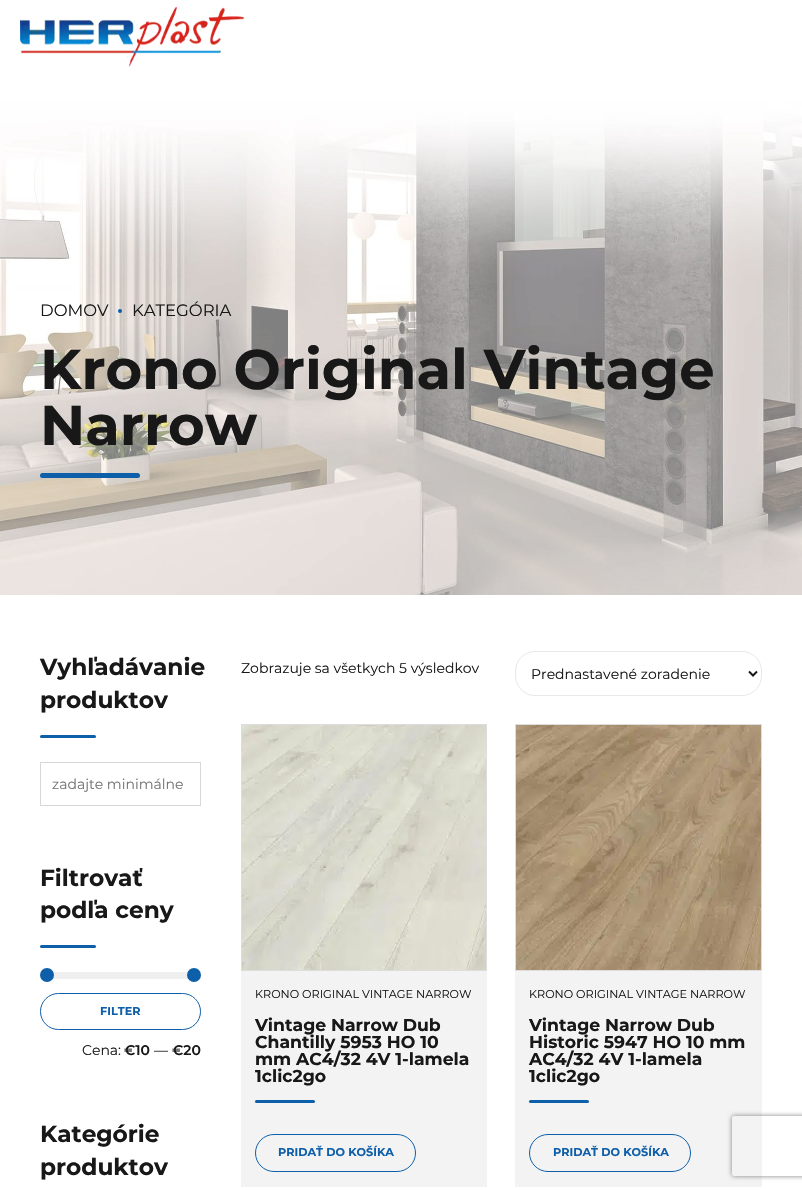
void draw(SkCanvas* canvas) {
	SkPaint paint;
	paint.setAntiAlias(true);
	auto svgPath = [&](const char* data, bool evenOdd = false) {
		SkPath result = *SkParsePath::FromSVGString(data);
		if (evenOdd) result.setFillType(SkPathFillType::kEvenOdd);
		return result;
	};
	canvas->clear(0xffffffff);
	canvas->drawImageRect(SkImages::DeferredFromEncodedData(SkData::MakeFromFileName("img1.png")), SkRect::MakeXYWH(20, 7, 224, 60), SkSamplingOptions());
	canvas->drawImageRect(SkImages::DeferredFromEncodedData(SkData::MakeFromFileName("img2.png")), SkRect::MakeXYWH(0, 100, 802, 495), SkSamplingOptions());
	SkFont f1(fontMgr->matchFamilyStyle("Montserrat", SkFontStyle::Normal()), 16.5);
	f1.setSubpixel(true);
	paint.setColor(0xff181818);
	canvas->drawString("DOMOV", 40, 316, f1, paint);
	paint.setColor(0xff0e5faa);
	canvas->drawCircle(120, 311, 2, paint);
	paint.setColor(0xff181818);
	canvas->drawString("KATEGÓRIA", 132, 316, f1, paint);
	SkFont f2(fontMgr->matchFamilyStyle("Montserrat", SkFontStyle::Bold()), 56);
	f2.setSubpixel(true);
	canvas->drawString("Krono Original Vintage", 40, 389, f2, paint);
	canvas->drawString("Narrow", 40, 445, f2, paint);
	paint.setColor(0xff0e5faa);
	canvas->drawRoundRect(SkRect::MakeXYWH(40, 473, 100, 5), 2.5, 2.5, paint);
	SkFont f3(fontMgr->matchFamilyStyle("Montserrat", SkFontStyle::Bold()), 23.25);
	f3.setSubpixel(true);
	paint.setColor(0xff181818);
	canvas->drawString("Vyhľadávanie", 40, 675, f3, paint);
	canvas->drawString("produktov", 40, 708, f3, paint);
	paint.setColor(0xff0e5faa);
	canvas->drawRoundRect(SkRect::MakeXYWH(40, 735, 56, 3), 1.5, 1.5, paint);
	paint.setStroke(true);
	paint.setStrokeWidth(1);
	paint.setColor(0xffd8d8d8);
	canvas->drawRect(SkRect::MakeXYWH(40.5, 762.5, 160, 43), paint);
	SkFont f4(fontMgr->matchFamilyStyle("Montserrat", SkFontStyle::Normal()), 14);
	f4.setSubpixel(true);
	paint.setStroke(false);
	paint.setColor(0xff757575);
	canvas->drawString("zadajte minimálne", 52, 789, f4, paint);
	paint.setColor(0xff181818);
	canvas->drawString("Filtrovať", 40, 886, f3, paint);
	canvas->drawString("podľa ceny", 40, 918, f3, paint);
	paint.setColor(0xff0e5faa);
	canvas->drawRoundRect(SkRect::MakeXYWH(40, 945, 56, 3), 1.5, 1.5, paint);
	paint.setColor(0xffefefef);
	canvas->drawRect(SkRect::MakeXYWH(47, 972, 147, 7), paint);
	paint.setColor(0xff0e5faa);
	canvas->drawCircle(47, 975, 7, paint);
	canvas->drawCircle(194, 975, 7, paint);
	paint.setStroke(true);
	canvas->drawRoundRect(SkRect::MakeXYWH(40.5, 993.5, 160, 36), 18, 18, paint);
	SkFont f5(fontMgr->matchFamilyStyle("Montserrat", SkFontStyle::Bold()), 11.25);
	f5.setSubpixel(true);
	paint.setStroke(false);
	canvas->drawString("FILTER", 100, 1015, f5, paint);
	paint.setColor(0xff181818);
	canvas->drawString("Cena:", 82, 1055, f4, paint);
	SkFont f6(fontMgr->matchFamilyStyle("Montserrat", SkFontStyle(600, SkFontStyle::kNormal_Width, SkFontStyle::kUpright_Slant)), 14);
	f6.setSubpixel(true);
	canvas->drawString("€10", 124, 1055, f6, paint);
	canvas->drawString("—", 154, 1055, f4, paint);
	canvas->drawString("€20", 172, 1055, f6, paint);
	canvas->drawString("Kategórie", 40, 1142, f3, paint);
	canvas->drawString("produktov", 40, 1175, f3, paint);
	canvas->drawString("Zobrazuje sa všetkych 5 výsledkov", 241, 673, f4, paint);
	paint.setStroke(true);
	paint.setColor(0xffe8e8e8);
	canvas->drawRoundRect(SkRect::MakeXYWH(515.5, 651.5, 246, 44), 19.5, 19.5, paint);
	paint.setStrokeWidth(2);
	paint.setColor(0xff181818);
	canvas->drawPath(svgPath("M749 671.5L753 675.5L757 671.5"), paint);
	paint.setStroke(false);
	canvas->drawString("Prednastavené zoradenie", 531, 679, f4, paint);
	paint.setColor(0xfff3f3f3);
	canvas->drawRect(SkRect::MakeXYWH(241, 971, 246, 216), paint);
	paint.setStroke(true);
	paint.setStrokeWidth(1);
	paint.setColor(0xffdddddd);
	canvas->drawRect(SkRect::MakeXYWH(241.5, 724.5, 245, 246), paint);
	canvas->drawImageRect(SkImages::DeferredFromEncodedData(SkData::MakeFromFileName("img3.png")), SkRect::MakeXYWH(242, 725, 244, 245), SkSamplingOptions());
	SkFont f7(fontMgr->matchFamilyStyle("Montserrat", SkFontStyle::Normal()), 11.25);
	f7.setSubpixel(true);
	paint.setStroke(false);
	paint.setColor(0xff181818);
	canvas->drawString("KRONO ORIGINAL VINTAGE NARROW", 255, 998, f7, paint);
	SkFont f8(fontMgr->matchFamilyStyle("Montserrat", SkFontStyle::Bold()), 17.25);
	f8.setSubpixel(true);
	canvas->drawString("Vintage Narrow Dub", 255, 1031, f8, paint);
	canvas->drawString("Chantilly 5953 HO 10", 255, 1048, f8, paint);
	canvas->drawString("mm AC4/32 4V 1-lamela", 255, 1065, f8, paint);
	canvas->drawString("1clic2go", 255, 1082, f8, paint);
	paint.setColor(0xff0e5faa);
	canvas->drawRoundRect(SkRect::MakeXYWH(255, 1100, 60, 3), 1.5, 1.5, paint);
	paint.setStroke(true);
	canvas->drawRoundRect(SkRect::MakeXYWH(255.5, 1134.5, 160, 37), 18.5, 18.5, paint);
	paint.setStroke(false);
	canvas->drawString("PRIDAŤ DO KOŠÍKA", 278, 1156, f5, paint);
	paint.setColor(0xfff3f3f3);
	canvas->drawRect(SkRect::MakeXYWH(515, 971, 247, 216), paint);
	paint.setStroke(true);
	paint.setColor(0xffdddddd);
	canvas->drawRect(SkRect::MakeXYWH(515.5, 724.5, 246, 246), paint);
	canvas->drawImageRect(SkImages::DeferredFromEncodedData(SkData::MakeFromFileName("img4.png")), SkRect::MakeXYWH(516, 725, 245, 245), SkSamplingOptions());
	paint.setStroke(false);
	paint.setColor(0xff181818);
	canvas->drawString("KRONO ORIGINAL VINTAGE NARROW", 529, 998, f7, paint);
	canvas->drawString("Vintage Narrow Dub", 529, 1031, f8, paint);
	canvas->drawString("Historic 5947 HO 10 mm", 529, 1048, f8, paint);
	canvas->drawString("AC4/32 4V 1-lamela", 529, 1065, f8, paint);
	canvas->drawString("1clic2go", 529, 1082, f8, paint);
	paint.setColor(0xff0e5faa);
	canvas->drawRoundRect(SkRect::MakeXYWH(529, 1100, 60, 3), 1.5, 1.5, paint);
	paint.setStroke(true);
	canvas->drawRoundRect(SkRect::MakeXYWH(529.5, 1134.5, 161, 37), 18.5, 18.5, paint);
	paint.setStroke(false);
	canvas->drawString("PRIDAŤ DO KOŠÍKA", 553, 1156, f5, paint);
	canvas->save();
	canvas->clipPath(svgPath("M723 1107H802V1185H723ZM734 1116H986C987 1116 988 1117 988 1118V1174C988 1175 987 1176 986 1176H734C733 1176 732 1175 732 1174V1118C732 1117 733 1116 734 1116Z", true), true);
	paint.setColor(0xff808080);
	paint.setMaskFilter(SkMaskFilter::MakeBlur(kNormal_SkBlurStyle, 2.5));
	canvas->drawRoundRect(SkRect::MakeXYWH(732, 1116, 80, 60), 2, 2, paint);
	paint.setMaskFilter(nullptr);
	canvas->restore();
}
